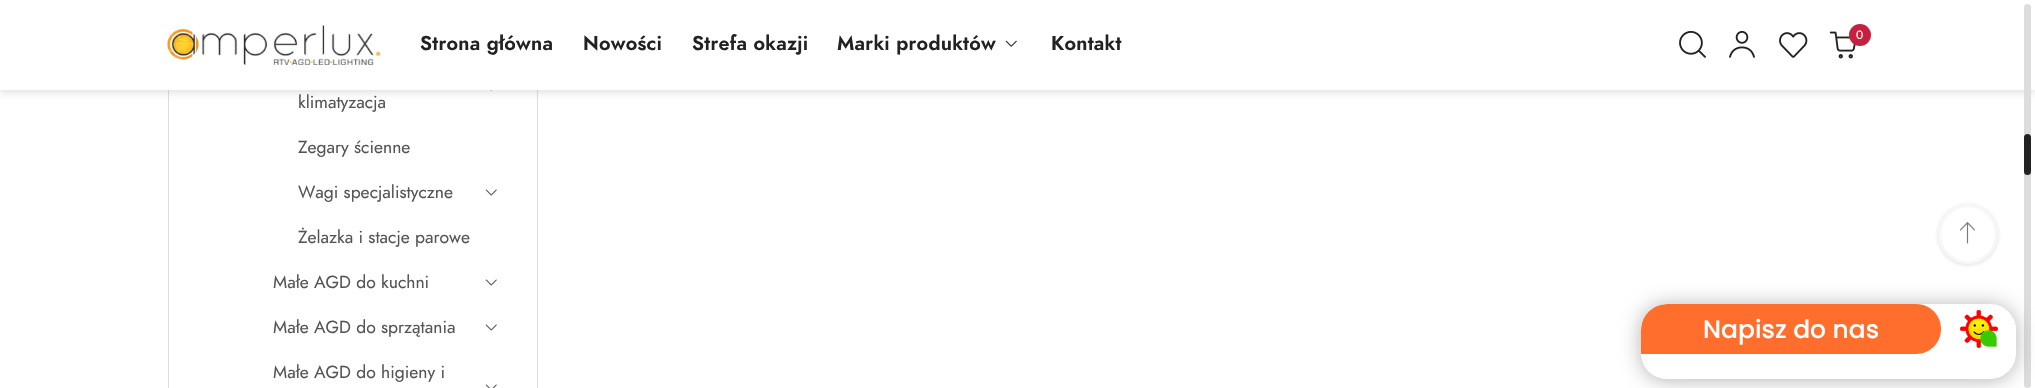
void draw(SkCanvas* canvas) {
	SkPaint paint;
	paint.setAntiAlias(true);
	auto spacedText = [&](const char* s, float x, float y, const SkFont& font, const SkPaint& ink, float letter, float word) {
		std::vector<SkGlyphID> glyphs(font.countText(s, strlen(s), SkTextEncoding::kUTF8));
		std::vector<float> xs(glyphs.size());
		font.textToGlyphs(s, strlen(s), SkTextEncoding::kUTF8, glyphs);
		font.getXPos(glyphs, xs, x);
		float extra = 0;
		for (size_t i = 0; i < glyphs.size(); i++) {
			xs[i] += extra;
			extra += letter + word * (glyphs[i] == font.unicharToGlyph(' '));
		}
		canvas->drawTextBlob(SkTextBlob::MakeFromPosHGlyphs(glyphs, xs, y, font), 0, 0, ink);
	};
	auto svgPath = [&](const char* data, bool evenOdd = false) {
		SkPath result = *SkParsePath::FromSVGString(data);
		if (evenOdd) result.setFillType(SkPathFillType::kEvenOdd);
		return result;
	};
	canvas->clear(0xffffffff);
	paint.setStroke(true);
	paint.setStrokeWidth(1);
	paint.setColor(0xffdddddd);
	canvas->drawRect(SkRect::MakeXYWH(168.5, -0.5, 369, 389), paint);
	canvas->drawImageRect(SkImages::DeferredFromEncodedData(SkData::MakeFromFileName("img7.png")), SkRect::MakeXYWH(490, 90, 2, 1), SkSamplingOptions());
	paint.setStroke(false);
	paint.setColor(0x17000000);
	paint.setMaskFilter(SkMaskFilter::MakeBlur(kNormal_SkBlurStyle, 3));
	canvas->drawRect(SkRect::MakeXYWH(0, 4, 2035, 90), paint);
	paint.setMaskFilter(nullptr);
	paint.setColor(0xffffffff);
	canvas->drawRect(SkRect::MakeXYWH(0, 0, 2035, 90), paint);
	canvas->drawImageRect(SkImages::DeferredFromEncodedData(SkData::MakeFromFileName("img1.png")), SkRect::MakeXYWH(167, 24, 213, 41), SkSamplingOptions());
	SkFont f1(fontMgr->matchFamilyStyle("Jost", SkFontStyle(600, SkFontStyle::kNormal_Width, SkFontStyle::kUpright_Slant)), 20);
	f1.setSubpixel(true);
	paint.setColor(0xff222222);
	spacedText("Strona główna", 420, 50, f1, paint, 0.25, 0);
	spacedText("Nowości", 583, 50, f1, paint, 0.25, 0);
	spacedText("Strefa okazji", 692, 50, f1, paint, 0.25, 0);
	spacedText("Marki produktów", 837, 50, f1, paint, 0.25, 0);
	canvas->drawImageRect(SkImages::DeferredFromEncodedData(SkData::MakeFromFileName("img2.png")), SkRect::MakeXYWH(1005, 40, 12, 7), SkSamplingOptions());
	spacedText("Kontakt", 1051, 50, f1, paint, 0.25, 0);
	canvas->drawImageRect(SkImages::DeferredFromEncodedData(SkData::MakeFromFileName("img3.png")), SkRect::MakeXYWH(1679, 30, 27, 28), SkSamplingOptions());
	canvas->drawImageRect(SkImages::DeferredFromEncodedData(SkData::MakeFromFileName("img4.png")), SkRect::MakeXYWH(1729, 30, 26, 28), SkSamplingOptions());
	canvas->drawImageRect(SkImages::DeferredFromEncodedData(SkData::MakeFromFileName("img5.png")), SkRect::MakeXYWH(1779, 32, 29, 26), SkSamplingOptions());
	canvas->drawImageRect(SkImages::DeferredFromEncodedData(SkData::MakeFromFileName("img6.png")), SkRect::MakeXYWH(1829, 31, 27, 28), SkSamplingOptions());
	paint.setColor(0xffc5203d);
	canvas->drawCircle(1860, 35, 11, paint);
	SkFont f2(fontMgr->matchFamilyStyle("Jost", SkFontStyle::Normal()), 12);
	f2.setSubpixel(true);
	paint.setColor(0xffffffff);
	canvas->drawString("0", 1856, 39, f2, paint);
	SkFont f3(fontMgr->matchFamilyStyle("Jost", SkFontStyle::Normal()), 17.5);
	f3.setSubpixel(true);
	paint.setColor(0xff555555);
	canvas->drawString("klimatyzacja", 298, 108, f3, paint);
	canvas->drawString("Zegary ścienne", 298, 153, f3, paint);
	canvas->drawString("Wagi specjalistyczne", 298, 198, f3, paint);
	canvas->drawImageRect(SkImages::DeferredFromEncodedData(SkData::MakeFromFileName("img8.png")), SkRect::MakeXYWH(485, 189, 12, 7), SkSamplingOptions());
	canvas->drawString("Żelazka i stacje parowe", 298, 243, f3, paint);
	canvas->drawString("Małe AGD do kuchni", 273, 288, f3, paint);
	canvas->drawImageRect(SkImages::DeferredFromEncodedData(SkData::MakeFromFileName("img8.png")), SkRect::MakeXYWH(485, 279, 12, 7), SkSamplingOptions());
	canvas->drawString("Małe AGD do sprzątania", 273, 333, f3, paint);
	canvas->drawImageRect(SkImages::DeferredFromEncodedData(SkData::MakeFromFileName("img8.png")), SkRect::MakeXYWH(485, 324, 12, 7), SkSamplingOptions());
	canvas->drawString("Małe AGD do higieny i", 273, 378, f3, paint);
	canvas->drawImageRect(SkImages::DeferredFromEncodedData(SkData::MakeFromFileName("img9.png")), SkRect::MakeXYWH(485, 384, 12, 4), SkSamplingOptions());
	paint.setColor(0x33666666);
	paint.setMaskFilter(SkMaskFilter::MakeBlur(kNormal_SkBlurStyle, 2));
	canvas->drawRoundRect(SkRect::MakeXYWH(1938, 205, 60, 60), 30, 30, paint);
	paint.setMaskFilter(nullptr);
	paint.setColor(0xffffffff);
	canvas->drawCircle(1968, 234, 28.5, paint);
	paint.setStroke(true);
	paint.setStrokeWidth(3);
	paint.setColor(0xfff7f7f7);
	canvas->drawCircle(1968, 234, 28.5, paint);
	canvas->drawImageRect(SkImages::DeferredFromEncodedData(SkData::MakeFromFileName("img10.png")), SkRect::MakeXYWH(1960, 222, 15, 22), SkSamplingOptions());
	paint.setStroke(false);
	paint.setColor(0xffdddddd);
	canvas->drawRoundRect(SkRect::MakeXYWH(2024, 4, 7, 384), 3.5, 3.5, paint);
	paint.setColor(0xff222222);
	canvas->drawRoundRect(SkRect::MakeXYWH(2024, 134, 7, 41), 3.5, 3.5, paint);
	canvas->save();
	canvas->clipPath(svgPath("M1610 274H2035V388H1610ZM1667 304H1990C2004.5 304 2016 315.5 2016 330V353C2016 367.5 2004.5 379 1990 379H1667C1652.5 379 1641 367.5 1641 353V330C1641 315.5 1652.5 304 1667 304Z", true), true);
	paint.setColor(0x4d000000);
	paint.setMaskFilter(SkMaskFilter::MakeBlur(kNormal_SkBlurStyle, 10));
	canvas->drawRoundRect(SkRect::MakeXYWH(1641, 305, 375, 75), 26, 26, paint);
	paint.setMaskFilter(nullptr);
	canvas->restore();
	canvas->save();
	canvas->clipPath(svgPath("M1667 304H1990C2004.5 304 2016 315.5 2016 330V353C2016 367.5 2004.5 379 1990 379H1667C1652.5 379 1641 367.5 1641 353V330C1641 315.5 1652.5 304 1667 304Z"), true);
	paint.setColor(0xffff6e2c);
	canvas->drawPath(svgPath("M1667 304H1916C1930 304 1941 315 1941 329C1941 343 1930 354 1916 354H1641V330C1641 315.5 1652.5 304 1667 304Z"), paint);
	canvas->restore();
	SkFont f4(fontMgr->matchFamilyStyle("Poppins", SkFontStyle(500, SkFontStyle::kNormal_Width, SkFontStyle::kUpright_Slant)), 25);
	f4.setSubpixel(true);
	paint.setColor(0xffffffff);
	canvas->drawString("Napisz do nas", 1703, 338, f4, paint);
	canvas->drawPath(svgPath("M1979 304C1995 304 2009 311 2014 320C2015 323 2016 326 2016 330V333C2013 345 1998 354 1979 354C1958 354 1942 343 1942 329C1942 315 1958 304 1979 304Z"), paint);
	canvas->drawImageRect(SkImages::DeferredFromEncodedData(SkData::MakeFromFileName("img11.png")), SkRect::MakeXYWH(1960, 310, 38, 38), SkSamplingOptions());
}
